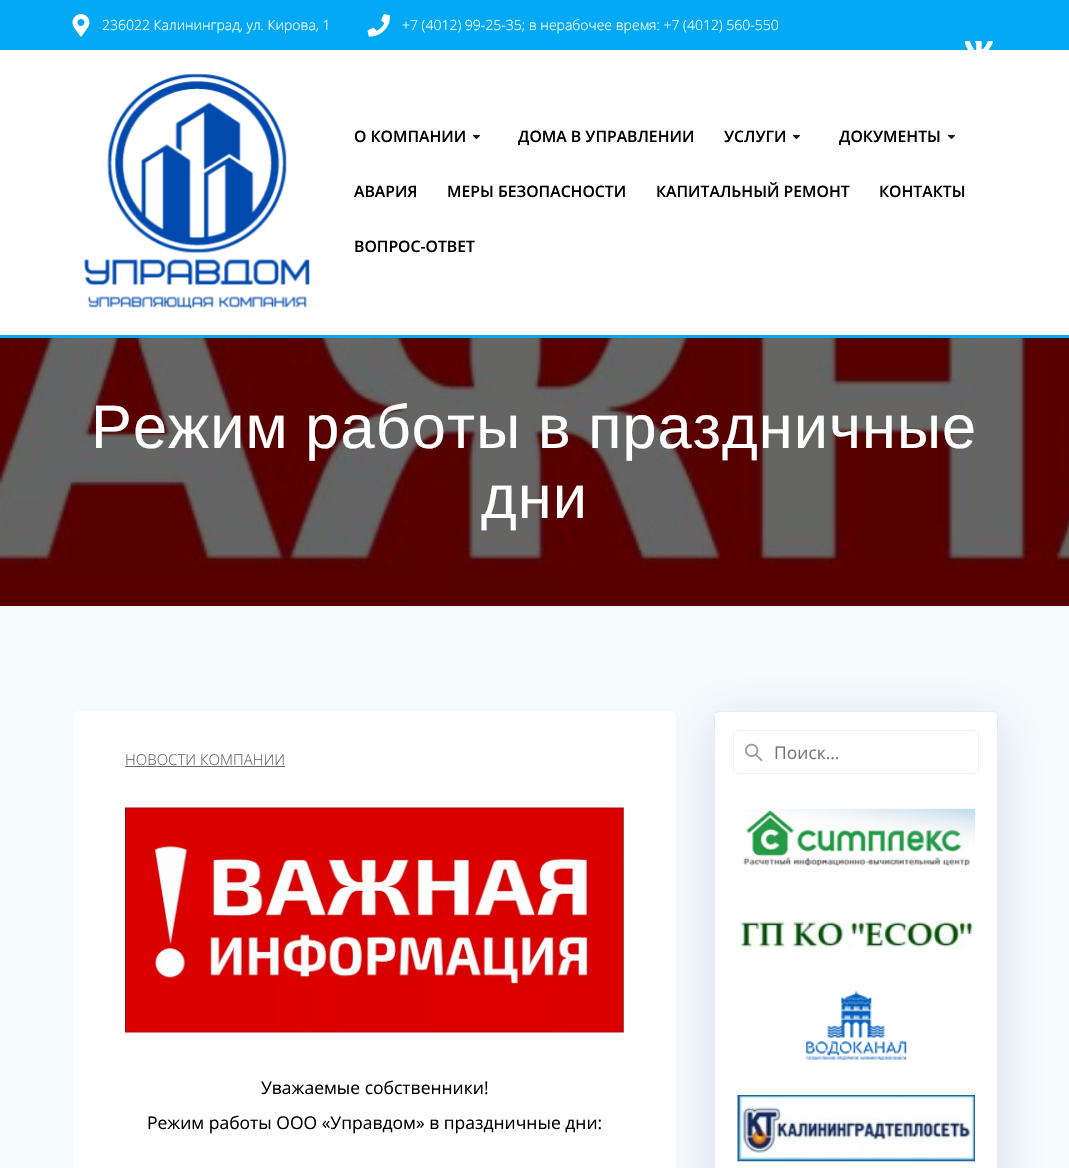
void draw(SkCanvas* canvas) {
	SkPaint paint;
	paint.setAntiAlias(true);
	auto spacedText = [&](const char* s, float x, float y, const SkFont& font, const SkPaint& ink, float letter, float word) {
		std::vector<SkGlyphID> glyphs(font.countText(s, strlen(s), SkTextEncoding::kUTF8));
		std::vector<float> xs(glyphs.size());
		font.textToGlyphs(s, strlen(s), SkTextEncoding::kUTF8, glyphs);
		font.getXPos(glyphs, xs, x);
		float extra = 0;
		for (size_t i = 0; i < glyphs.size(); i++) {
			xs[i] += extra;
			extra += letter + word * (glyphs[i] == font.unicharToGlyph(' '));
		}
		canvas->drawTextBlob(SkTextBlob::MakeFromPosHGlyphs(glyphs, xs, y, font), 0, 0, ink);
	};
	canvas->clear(0xffffffff);
	paint.setColor(0xff03a9f4);
	canvas->drawRect(SkRect::MakeXYWH(0, 0, 1069, 50), paint);
	canvas->drawImageRect(SkImages::DeferredFromEncodedData(SkData::MakeFromFileName("img1.png")), SkRect::MakeXYWH(72, 14, 18, 23), SkSamplingOptions());
	SkFont f1(fontMgr->matchFamilyStyle("Open Sans", SkFontStyle(300, SkFontStyle::kNormal_Width, SkFontStyle::kUpright_Slant)), 14);
	f1.setSubpixel(true);
	paint.setColor(0xffffffff);
	canvas->drawString("236022 Калининград, ул. Кирова, 1", 102, 30, f1, paint);
	canvas->drawImageRect(SkImages::DeferredFromEncodedData(SkData::MakeFromFileName("img2.png")), SkRect::MakeXYWH(367, 14, 24, 23), SkSamplingOptions());
	canvas->drawString("+7 (4012) 99-25-35; в нерабочее время: +7 (4012) 560-550", 402, 30, f1, paint);
	canvas->drawImageRect(SkImages::DeferredFromEncodedData(SkData::MakeFromFileName("img3.png")), SkRect::MakeXYWH(964, 41, 30, 9), SkSamplingOptions());
	paint.setColor(0xff03a9f4);
	canvas->drawRect(SkRect::MakeXYWH(0, 335, 1069, 3), paint);
	canvas->drawImageRect(SkImages::DeferredFromEncodedData(SkData::MakeFromFileName("img4.png")), SkRect::MakeXYWH(84, 73, 226, 237), SkSamplingOptions());
	SkFont f2(fontMgr->matchFamilyStyle("Open Sans", SkFontStyle(600, SkFontStyle::kNormal_Width, SkFontStyle::kUpright_Slant)), 15.75);
	f2.setSubpixel(true);
	paint.setColor(0xff000000);
	canvas->drawString("О КОМПАНИИ", 354, 142, f2, paint);
	canvas->drawImageRect(SkImages::DeferredFromEncodedData(SkData::MakeFromFileName("img5.png")), SkRect::MakeXYWH(472, 134, 9, 6), SkSamplingOptions());
	canvas->drawString("ДОМА В УПРАВЛЕНИИ", 518, 142, f2, paint);
	canvas->drawString("УСЛУГИ", 724, 142, f2, paint);
	canvas->drawImageRect(SkImages::DeferredFromEncodedData(SkData::MakeFromFileName("img5.png")), SkRect::MakeXYWH(792, 134, 9, 6), SkSamplingOptions());
	canvas->drawString("ДОКУМЕНТЫ", 839, 142, f2, paint);
	canvas->drawImageRect(SkImages::DeferredFromEncodedData(SkData::MakeFromFileName("img5.png")), SkRect::MakeXYWH(947, 134, 9, 6), SkSamplingOptions());
	canvas->drawString("АВАРИЯ", 354, 197, f2, paint);
	canvas->drawString("МЕРЫ БЕЗОПАСНОСТИ", 447, 197, f2, paint);
	canvas->drawString("КАПИТАЛЬНЫЙ РЕМОНТ", 656, 197, f2, paint);
	canvas->drawString("КОНТАКТЫ", 879, 197, f2, paint);
	canvas->drawString("ВОПРОС-ОТВЕТ", 354, 252, f2, paint);
	canvas->drawImageRect(SkImages::DeferredFromEncodedData(SkData::MakeFromFileName("img6.png")), SkRect::MakeXYWH(0, 338, 1069, 268), SkSamplingOptions());
	SkFont f3(fontMgr->matchFamilyStyle("Liberation Sans", SkFontStyle::Normal()), 61.25);
	f3.setSubpixel(true);
	paint.setColor(0xffffffff);
	spacedText("Режим работы в праздничные", 91, 448, f3, paint, 1.1, -1.5);
	spacedText("дни", 481, 518, f3, paint, 1.1, 0);
	paint.setColor(0xfff5fafd);
	canvas->drawRect(SkRect::MakeXYWH(0, 606, 1069, 562), paint);
	paint.setColor(0xffffffff);
	canvas->drawRoundRect(SkRect::MakeXYWH(73, 711, 603, 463), 6, 6, paint);
	SkFont f4(fontMgr->matchFamilyStyle("Open Sans", SkFontStyle(300, SkFontStyle::kNormal_Width, SkFontStyle::kUpright_Slant)), 15);
	f4.setSubpixel(true);
	paint.setColor(0xff666666);
	canvas->drawString("НОВОСТИ КОМПАНИИ", 125, 765, f4, paint);
	canvas->drawRect(SkRect::MakeXYWH(125, 766, 160, 1), paint);
	canvas->drawImageRect(SkImages::DeferredFromEncodedData(SkData::MakeFromFileName("img7.png")), SkRect::MakeXYWH(125, 807, 499, 226), SkSamplingOptions());
	SkFont f5(fontMgr->matchFamilyStyle("Open Sans", SkFontStyle::Normal()), 17.5);
	f5.setSubpixel(true);
	paint.setColor(0xff000000);
	canvas->drawString("Уважаемые собственники!", 261, 1094, f5, paint);
	canvas->drawString("Режим работы ООО «Управдом» в праздничные дни:", 147, 1129, f5, paint);
	paint.setColor(0x26234598);
	paint.setMaskFilter(SkMaskFilter::MakeBlur(kNormal_SkBlurStyle, 24.5));
	canvas->drawRoundRect(SkRect::MakeXYWH(714, 721, 284, 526), 5, 5, paint);
	paint.setMaskFilter(nullptr);
	paint.setColor(0xffffffff);
	canvas->drawRoundRect(SkRect::MakeXYWH(714.5, 711.5, 283, 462), 4.5, 4.5, paint);
	paint.setStroke(true);
	paint.setStrokeWidth(1);
	paint.setColor(0xffececec);
	canvas->drawRoundRect(SkRect::MakeXYWH(714.5, 711.5, 283, 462), 4.5, 4.5, paint);
	paint.setStroke(false);
	paint.setColor(0xffffffff);
	canvas->drawRect(SkRect::MakeXYWH(715, 713, 1, 2), paint);
	canvas->drawImageRect(SkImages::DeferredFromEncodedData(SkData::MakeFromFileName("img8.png")), SkRect::MakeXYWH(745, 743, 18, 19), SkSamplingOptions());
	paint.setStroke(true);
	paint.setColor(0xfff1f1f1);
	canvas->drawRoundRect(SkRect::MakeXYWH(733.5, 730.5, 245, 43), 3.5, 3.5, paint);
	paint.setStroke(false);
	paint.setColor(0xff757575);
	canvas->drawString("Поиск…", 774, 759, f5, paint);
	canvas->drawImageRect(SkImages::DeferredFromEncodedData(SkData::MakeFromFileName("img9.png")), SkRect::MakeXYWH(743, 808, 232, 59), SkSamplingOptions());
	canvas->drawImageRect(SkImages::DeferredFromEncodedData(SkData::MakeFromFileName("img10.png")), SkRect::MakeXYWH(738, 920, 237, 30), SkSamplingOptions());
	canvas->drawImageRect(SkImages::DeferredFromEncodedData(SkData::MakeFromFileName("img11.png")), SkRect::MakeXYWH(806, 990, 101, 70), SkSamplingOptions());
	canvas->drawImageRect(SkImages::DeferredFromEncodedData(SkData::MakeFromFileName("img12.png")), SkRect::MakeXYWH(737, 1095, 238, 67), SkSamplingOptions());
}
